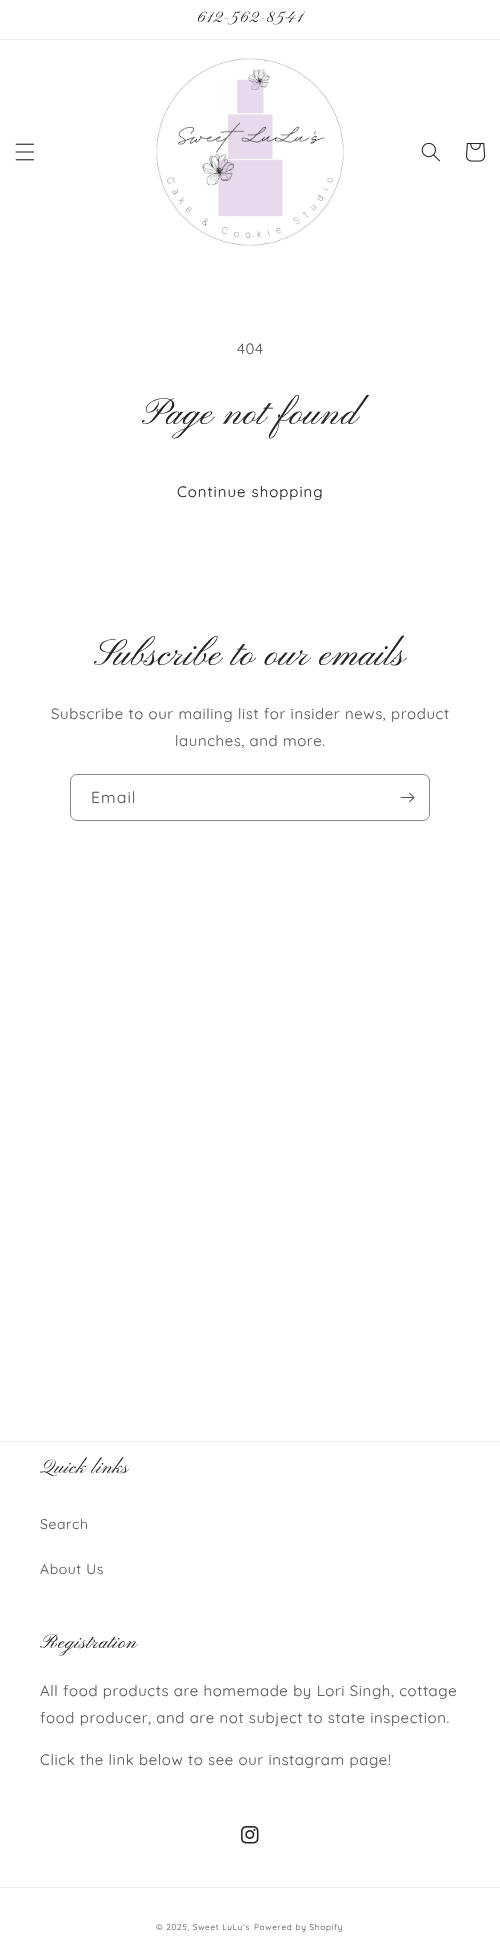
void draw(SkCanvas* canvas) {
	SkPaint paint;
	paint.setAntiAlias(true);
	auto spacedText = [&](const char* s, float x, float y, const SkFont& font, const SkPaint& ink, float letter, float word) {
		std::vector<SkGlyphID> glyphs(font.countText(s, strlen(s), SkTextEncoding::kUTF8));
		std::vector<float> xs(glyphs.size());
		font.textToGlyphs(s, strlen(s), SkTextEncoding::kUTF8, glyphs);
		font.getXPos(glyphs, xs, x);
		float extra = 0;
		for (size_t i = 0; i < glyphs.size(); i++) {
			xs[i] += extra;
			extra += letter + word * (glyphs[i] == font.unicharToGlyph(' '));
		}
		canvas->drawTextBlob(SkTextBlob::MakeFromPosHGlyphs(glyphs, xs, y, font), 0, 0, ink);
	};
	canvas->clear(0xffffffff);
	paint.setColor(0xffeeeeee);
	canvas->drawRect(SkRect::MakeXYWH(0, 39, 500, 1), paint);
	SkFont f1(fontMgr->matchFamilyStyle("Pinyon Script", SkFontStyle::Normal()), 15);
	f1.setSubpixel(true);
	paint.setColor(0xff252525);
	spacedText("612-562-8541", 196, 22, f1, paint, 1, 0);
	canvas->drawImageRect(SkImages::DeferredFromEncodedData(SkData::MakeFromFileName("img1.png")), SkRect::MakeXYWH(15, 143, 20, 18), SkSamplingOptions());
	canvas->drawImageRect(SkImages::DeferredFromEncodedData(SkData::MakeFromFileName("img2.png")), SkRect::MakeXYWH(156, 58, 188, 188), SkSamplingOptions());
	canvas->drawImageRect(SkImages::DeferredFromEncodedData(SkData::MakeFromFileName("img3.png")), SkRect::MakeXYWH(421, 142, 19, 20), SkSamplingOptions());
	canvas->drawImageRect(SkImages::DeferredFromEncodedData(SkData::MakeFromFileName("img4.png")), SkRect::MakeXYWH(466, 143, 20, 19), SkSamplingOptions());
	SkFont f2(fontMgr->matchFamilyStyle("Quicksand", SkFontStyle::Normal()), 15);
	f2.setSubpixel(true);
	paint.setColor(0xff5c5c5c);
	spacedText("404", 237, 354, f2, paint, 0.6, 0);
	SkFont f3(fontMgr->matchFamilyStyle("Pinyon Script", SkFontStyle::Normal()), 37.5);
	f3.setSubpixel(true);
	paint.setColor(0xff252525);
	spacedText("Page not found", 142, 424, f3, paint, 0.75, 0);
	spacedText("Continue shopping", 177, 497, f2, paint, 1, 0);
	spacedText("Subscribe to our emails", 94, 665, f3, paint, 0.75, 0);
	paint.setColor(0xff5c5c5c);
	spacedText("Subscribe to our mailing list for insider news, product", 51, 719, f2, paint, 0.6, 0);
	spacedText("launches, and more.", 175, 746, f2, paint, 0.6, 0);
	paint.setStroke(true);
	paint.setStrokeWidth(1);
	paint.setColor(0xff878787);
	canvas->drawRoundRect(SkRect::MakeXYWH(70.5, 774.5, 359, 46), 6.5, 6.5, paint);
	SkFont f4(fontMgr->matchFamilyStyle("Quicksand", SkFontStyle::Normal()), 16);
	f4.setSubpixel(true);
	paint.setStroke(false);
	paint.setColor(0xff5c5c5c);
	spacedText("Email", 91, 803, f4, paint, 1, 0);
	canvas->drawImageRect(SkImages::DeferredFromEncodedData(SkData::MakeFromFileName("img5.png")), SkRect::MakeXYWH(400, 792, 15, 11), SkSamplingOptions());
	paint.setColor(0xffeeeeee);
	canvas->drawRect(SkRect::MakeXYWH(0, 1441, 500, 1), paint);
	SkFont f5(fontMgr->matchFamilyStyle("Pinyon Script", SkFontStyle::Normal()), 20);
	f5.setSubpixel(true);
	paint.setColor(0xff252525);
	spacedText("Quick links", 40, 1473, f5, paint, 0.75, 0);
	SkFont f6(fontMgr->matchFamilyStyle("Quicksand", SkFontStyle::Normal()), 14);
	f6.setSubpixel(true);
	paint.setColor(0xff5c5c5c);
	spacedText("Search", 40, 1529, f6, paint, 0.6, 0);
	spacedText("About Us", 40, 1574, f6, paint, 0.6, 0);
	paint.setColor(0xff252525);
	spacedText("Registration", 40, 1648, f5, paint, 0.75, 0);
	paint.setColor(0xff5c5c5c);
	spacedText("All food products are homemade by Lori Singh, cottage", 40, 1696, f2, paint, 0.6, 0);
	spacedText("food producer, and are not subject to state inspection.", 40, 1723, f2, paint, 0.6, 0);
	spacedText("Click the link below to see our instagram page!", 40, 1765, f2, paint, 0.6, 0);
	canvas->drawImageRect(SkImages::DeferredFromEncodedData(SkData::MakeFromFileName("img6.png")), SkRect::MakeXYWH(241, 1826, 18, 18), SkSamplingOptions());
	paint.setColor(0xffeeeeee);
	canvas->drawRect(SkRect::MakeXYWH(0, 1887, 500, 1), paint);
	SkFont f7(fontMgr->matchFamilyStyle("Quicksand", SkFontStyle::Normal()), 8.25);
	f7.setSubpixel(true);
	paint.setColor(0xff5c5c5c);
	spacedText("© 2025, Sweet LuLu's", 156, 1930, f7, paint, 0.7, 0);
	spacedText("Powered by Shopify", 254, 1930, f7, paint, 0.7, 0);
}
